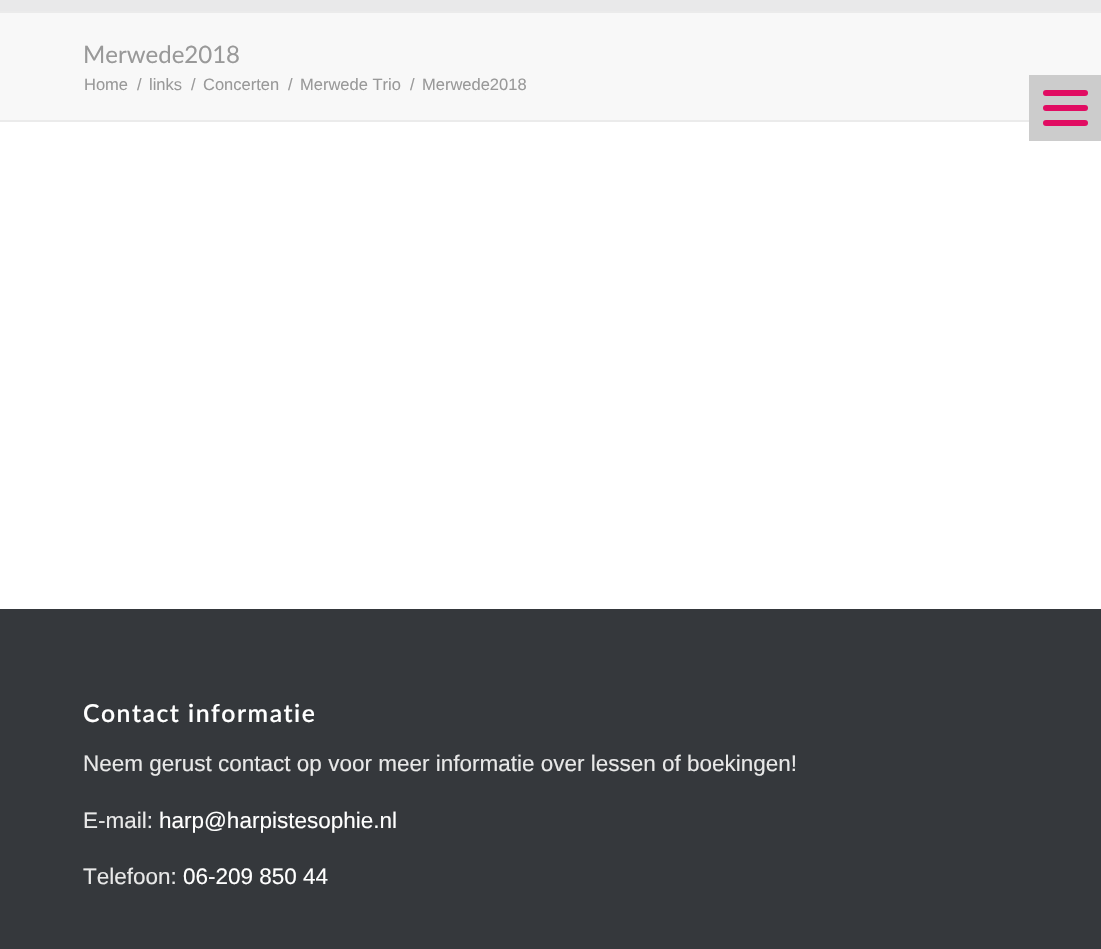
void draw(SkCanvas* canvas) {
	SkPaint paint;
	paint.setAntiAlias(true);
	auto spacedText = [&](const char* s, float x, float y, const SkFont& font, const SkPaint& ink, float letter, float word) {
		std::vector<SkGlyphID> glyphs(font.countText(s, strlen(s), SkTextEncoding::kUTF8));
		std::vector<float> xs(glyphs.size());
		font.textToGlyphs(s, strlen(s), SkTextEncoding::kUTF8, glyphs);
		font.getXPos(glyphs, xs, x);
		float extra = 0;
		for (size_t i = 0; i < glyphs.size(); i++) {
			xs[i] += extra;
			extra += letter + word * (glyphs[i] == font.unicharToGlyph(' '));
		}
		canvas->drawTextBlob(SkTextBlob::MakeFromPosHGlyphs(glyphs, xs, y, font), 0, 0, ink);
	};
	canvas->clear(0xfff8f8f8);
	paint.setColor(0xffe9e9ea);
	canvas->drawRect(SkRect::MakeXYWH(0, 0, 1101, 11), paint);
	paint.setColor(0xffebebeb);
	canvas->drawRect(SkRect::MakeXYWH(0, 11, 1101, 2), paint);
	SkFont f1(fontMgr->matchFamilyStyle("Lato", SkFontStyle::Normal()), 24);
	f1.setSubpixel(true);
	paint.setColor(0xff999999);
	canvas->drawString("Merwede2018", 83, 63, f1, paint);
	SkFont f2(fontMgr->matchFamilyStyle("Liberation Sans", SkFontStyle::Normal()), 16.5);
	f2.setSubpixel(true);
	canvas->drawString("Home", 84, 90, f2, paint);
	canvas->drawString("/", 137, 90, f2, paint);
	canvas->drawString("links", 149, 90, f2, paint);
	canvas->drawString("/", 191, 90, f2, paint);
	canvas->drawString("Concerten", 203, 90, f2, paint);
	canvas->drawString("/", 288, 90, f2, paint);
	canvas->drawString("Merwede Trio", 300, 90, f2, paint);
	canvas->drawString("/", 410, 90, f2, paint);
	canvas->drawString("Merwede2018", 422, 90, f2, paint);
	paint.setColor(0xffffffff);
	canvas->drawRect(SkRect::MakeXYWH(0, 122, 1101, 487), paint);
	paint.setColor(0xffebebeb);
	canvas->drawRect(SkRect::MakeXYWH(0, 120, 1029, 2), paint);
	paint.setColor(0xff35383c);
	canvas->drawRect(SkRect::MakeXYWH(0, 609, 1101, 340), paint);
	SkFont f3(fontMgr->matchFamilyStyle("Lato", SkFontStyle(600, SkFontStyle::kNormal_Width, SkFontStyle::kUpright_Slant)), 24.75);
	f3.setSubpixel(true);
	paint.setColor(0xffffffff);
	spacedText("Contact informatie", 83, 722, f3, paint, 1.5, 0);
	SkFont f4(fontMgr->matchFamilyStyle("Liberation Sans", SkFontStyle::Normal()), 22.5);
	f4.setSubpixel(true);
	paint.setColor(0xffe8e8e8);
	canvas->drawString("Neem gerust contact op voor meer informatie over lessen of boekingen!", 83, 771, f4, paint);
	canvas->drawString("E-mail:", 83, 828, f4, paint);
	paint.setColor(0xffffffff);
	canvas->drawString("harp@harpistesophie.nl", 159, 828, f4, paint);
	paint.setColor(0xffe8e8e8);
	canvas->drawString("Telefoon:", 83, 884, f4, paint);
	paint.setColor(0xffffffff);
	canvas->drawString("06-209 850 44", 183, 884, f4, paint);
	paint.setColor(0xffcccccc);
	canvas->drawRect(SkRect::MakeXYWH(1029, 75, 72, 66), paint);
	paint.setColor(0xffe10c62);
	canvas->drawRoundRect(SkRect::MakeXYWH(1043, 90, 45, 6), 3, 3, paint);
	canvas->drawRoundRect(SkRect::MakeXYWH(1043, 105, 45, 6), 3, 3, paint);
	canvas->drawRoundRect(SkRect::MakeXYWH(1043, 120, 45, 6), 3, 3, paint);
}
